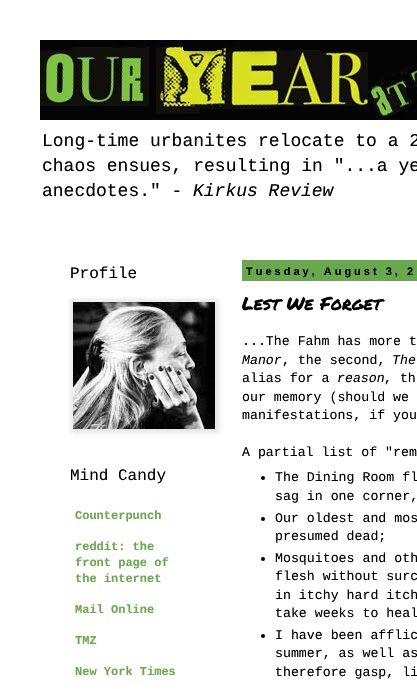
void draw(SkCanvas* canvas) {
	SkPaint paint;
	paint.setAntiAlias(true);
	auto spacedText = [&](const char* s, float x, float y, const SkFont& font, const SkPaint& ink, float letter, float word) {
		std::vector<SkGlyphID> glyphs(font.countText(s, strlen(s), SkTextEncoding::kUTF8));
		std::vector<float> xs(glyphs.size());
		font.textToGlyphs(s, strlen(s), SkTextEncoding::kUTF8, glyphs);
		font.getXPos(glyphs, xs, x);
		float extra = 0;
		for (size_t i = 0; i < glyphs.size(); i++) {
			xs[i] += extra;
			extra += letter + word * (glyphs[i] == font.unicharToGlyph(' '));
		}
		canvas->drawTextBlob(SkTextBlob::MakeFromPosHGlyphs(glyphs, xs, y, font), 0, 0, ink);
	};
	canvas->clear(0xffffffff);
	canvas->drawImageRect(SkImages::DeferredFromEncodedData(SkData::MakeFromFileName("img1.png")), SkRect::MakeXYWH(40, 40, 377, 80), SkSamplingOptions());
	SkFont f1(fontMgr->matchFamilyStyle("Liberation Mono", SkFontStyle::Normal()), 18);
	f1.setSubpixel(true);
	paint.setColor(0xff000000);
	canvas->drawString("Long-time urbanites relocate to a 2", 42, 146, f1, paint);
	canvas->drawString("chaos ensues, resulting in \"...a ye", 42, 171, f1, paint);
	canvas->drawString("anecdotes.\" -", 42, 196, f1, paint);
	SkFont f2(fontMgr->matchFamilyStyle("Liberation Mono", SkFontStyle::Italic()), 18);
	f2.setSubpixel(true);
	canvas->drawString("Kirkus Review", 193, 196, f2, paint);
	SkFont f3(fontMgr->matchFamilyStyle("Liberation Mono", SkFontStyle::Normal()), 16);
	f3.setSubpixel(true);
	canvas->drawString("Profile", 70, 278, f3, paint);
	paint.setColor(0x1a000000);
	paint.setMaskFilter(SkMaskFilter::MakeBlur(kNormal_SkBlurStyle, 2.5));
	canvas->drawRect(SkRect::MakeXYWH(71, 300, 148, 133), paint);
	paint.setMaskFilter(nullptr);
	paint.setStroke(true);
	paint.setStrokeWidth(1);
	paint.setColor(0xffeeeeee);
	canvas->drawRect(SkRect::MakeXYWH(70.5, 299.5, 147, 132), paint);
	canvas->drawImageRect(SkImages::DeferredFromEncodedData(SkData::MakeFromFileName("img2.png")), SkRect::MakeXYWH(73, 302, 142, 127), SkSamplingOptions());
	paint.setStroke(false);
	paint.setColor(0xff000000);
	canvas->drawString("Mind Candy", 70, 480, f3, paint);
	SkFont f4(fontMgr->matchFamilyStyle("Liberation Mono", SkFontStyle::Bold()), 12);
	f4.setSubpixel(true);
	paint.setColor(0xff6aa84f);
	canvas->drawString("Counterpunch", 75, 519, f4, paint);
	canvas->drawString("reddit: the", 75, 550, f4, paint);
	canvas->drawString("front page of", 75, 566, f4, paint);
	canvas->drawString("the internet", 75, 582, f4, paint);
	canvas->drawString("Mail Online", 75, 613, f4, paint);
	canvas->drawString("TMZ", 75, 644, f4, paint);
	canvas->drawString("New York Times", 75, 675, f4, paint);
	canvas->drawRect(SkRect::MakeXYWH(242, 260, 175, 21), paint);
	SkFont f5(fontMgr->matchFamilyStyle("Liberation Sans", SkFontStyle::Bold()), 11);
	f5.setSubpixel(true);
	paint.setColor(0xff000000);
	spacedText("Tuesday, August 3, 2", 246, 275, f5, paint, 3, 0);
	SkFont f6(fontMgr->matchFamilyStyle("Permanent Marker", SkFontStyle::Normal()), 18);
	f6.setSubpixel(true);
	canvas->drawString("Lest We Forget", 242, 310, f6, paint);
	SkFont f7(fontMgr->matchFamilyStyle("Liberation Mono", SkFontStyle::Normal()), 13.25);
	f7.setSubpixel(true);
	canvas->drawString("...The Fahm has more t", 242, 345, f7, paint);
	SkFont f8(fontMgr->matchFamilyStyle("Liberation Mono", SkFontStyle::Italic()), 13.25);
	f8.setSubpixel(true);
	canvas->drawString("Manor", 242, 364, f8, paint);
	canvas->drawString(", the second,", 282, 364, f7, paint);
	canvas->drawString("The", 392, 364, f8, paint);
	canvas->drawString("alias for a", 242, 382, f7, paint);
	canvas->drawString("reason", 337, 382, f8, paint);
	canvas->drawString(", th", 384, 382, f7, paint);
	canvas->drawString("our memory (should we", 242, 401, f7, paint);
	canvas->drawString("manifestations, if you", 242, 419, f7, paint);
	canvas->drawString("A partial list of \"rem", 242, 456, f7, paint);
	canvas->drawCircle(263, 478, 2, paint);
	canvas->drawString("The Dining Room fl", 275, 481, f7, paint);
	canvas->drawString("sag in one corner,", 275, 500, f7, paint);
	canvas->drawCircle(263, 519, 2, paint);
	canvas->drawString("Our oldest and mos", 275, 522, f7, paint);
	canvas->drawString("presumed dead;", 275, 540, f7, paint);
	canvas->drawCircle(263, 559, 2, paint);
	canvas->drawString("Mosquitoes and oth", 275, 562, f7, paint);
	canvas->drawString("flesh without surc", 275, 580, f7, paint);
	canvas->drawString("in itchy hard itch", 275, 599, f7, paint);
	canvas->drawString("take weeks to heal", 275, 617, f7, paint);
	canvas->drawCircle(263, 636, 2, paint);
	canvas->drawString("I have been afflic", 275, 639, f7, paint);
	canvas->drawString("summer, as well as", 275, 657, f7, paint);
	canvas->drawString("therefore gasp, li", 275, 676, f7, paint);
}
